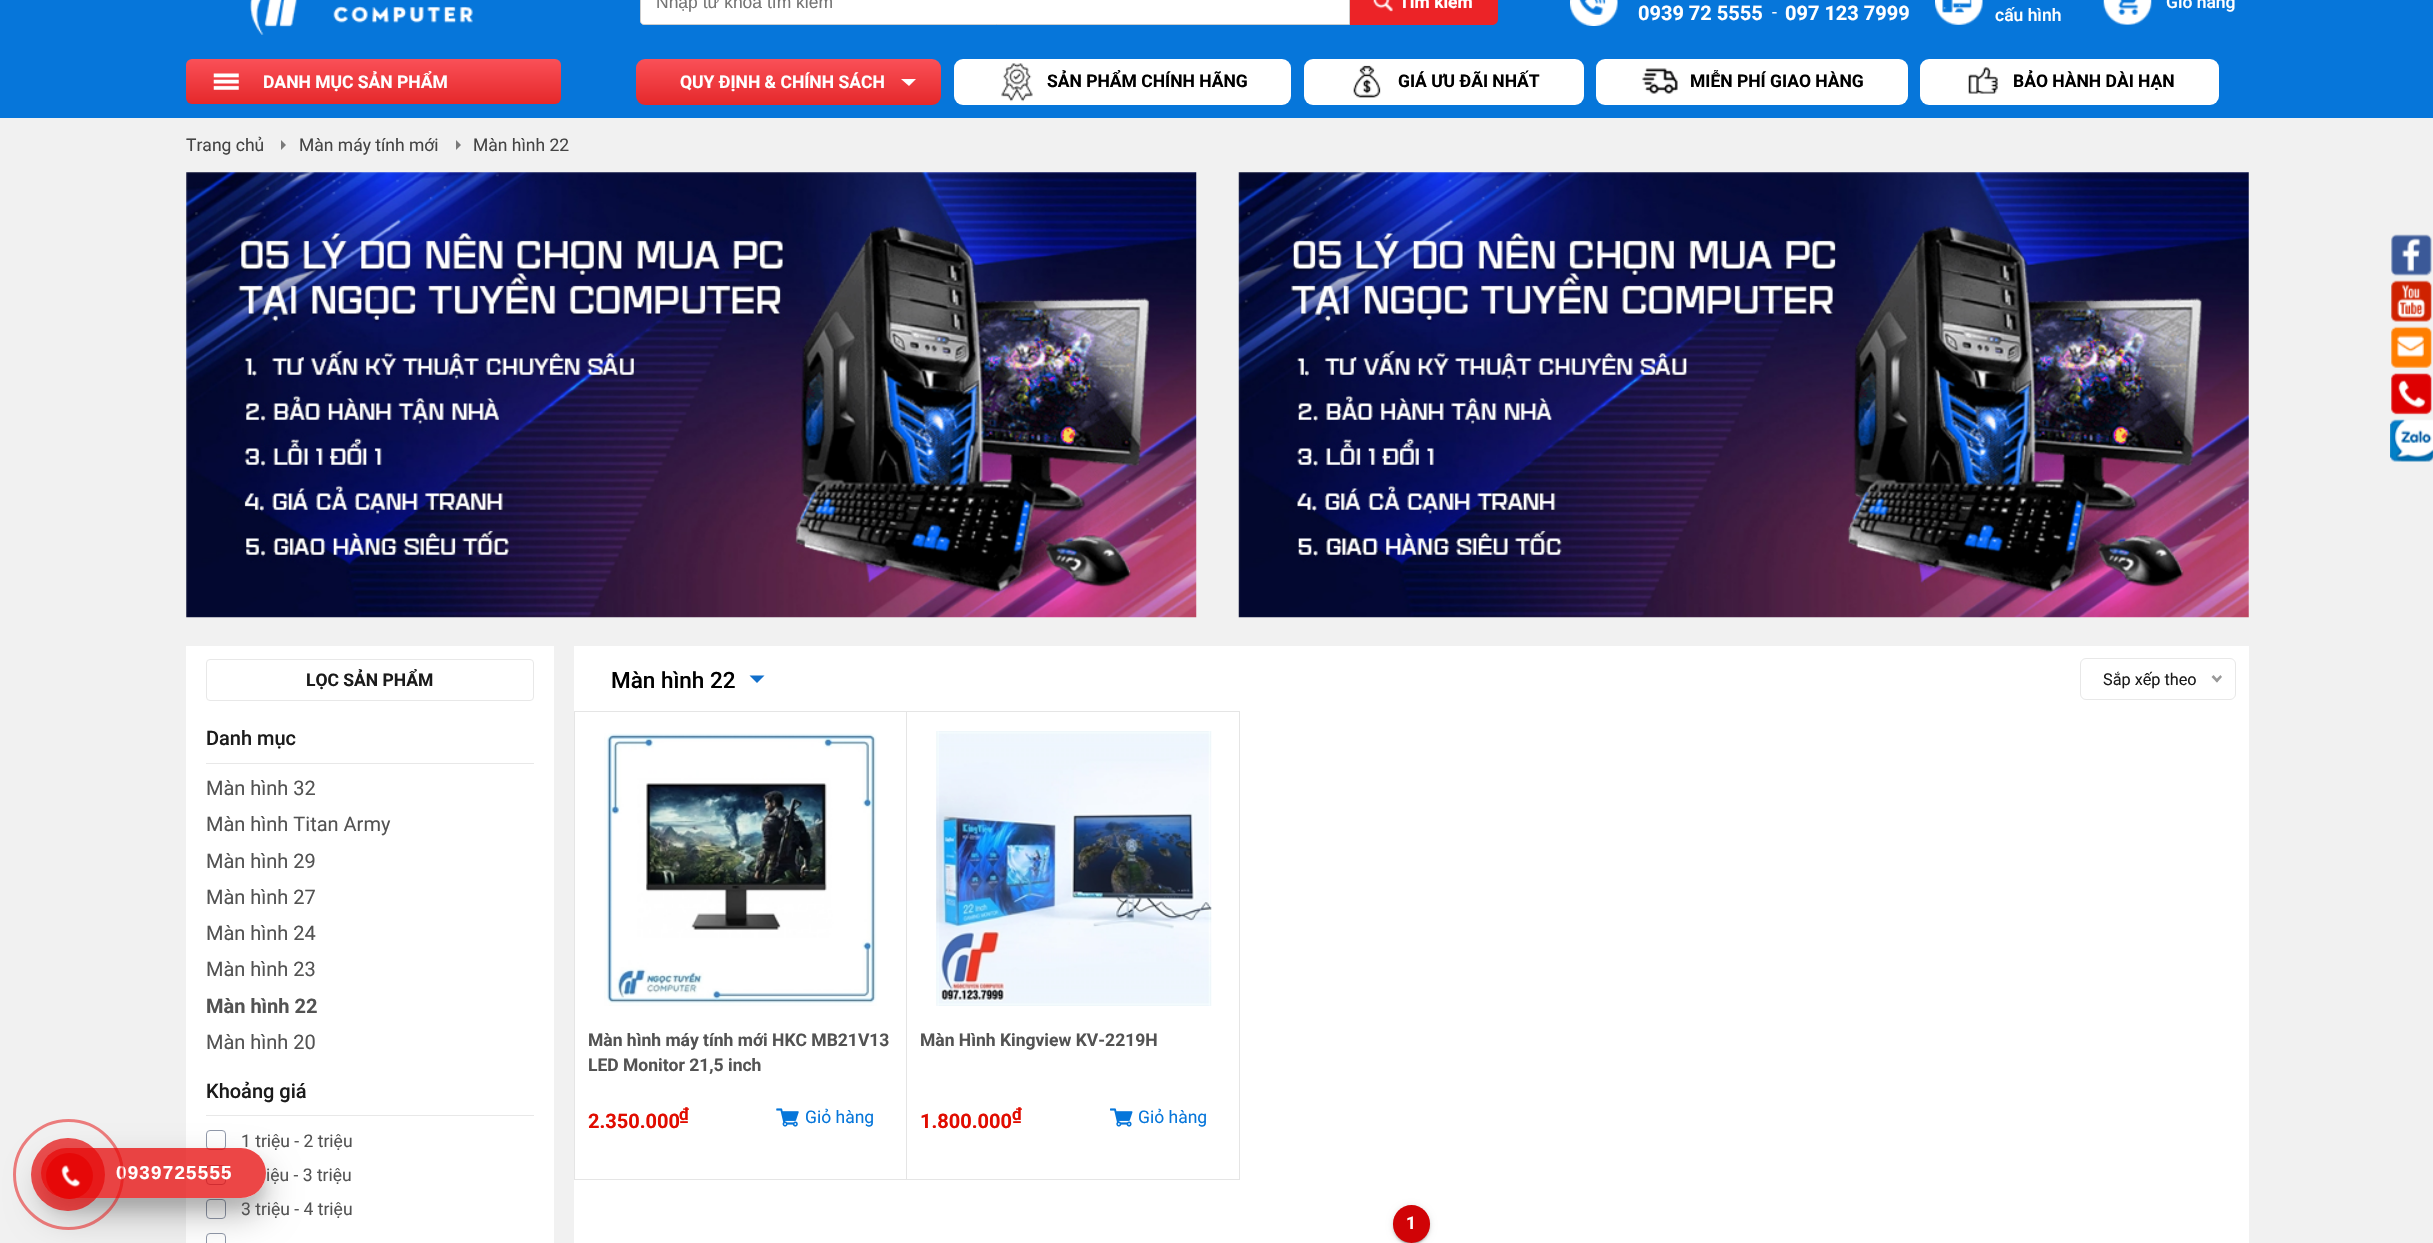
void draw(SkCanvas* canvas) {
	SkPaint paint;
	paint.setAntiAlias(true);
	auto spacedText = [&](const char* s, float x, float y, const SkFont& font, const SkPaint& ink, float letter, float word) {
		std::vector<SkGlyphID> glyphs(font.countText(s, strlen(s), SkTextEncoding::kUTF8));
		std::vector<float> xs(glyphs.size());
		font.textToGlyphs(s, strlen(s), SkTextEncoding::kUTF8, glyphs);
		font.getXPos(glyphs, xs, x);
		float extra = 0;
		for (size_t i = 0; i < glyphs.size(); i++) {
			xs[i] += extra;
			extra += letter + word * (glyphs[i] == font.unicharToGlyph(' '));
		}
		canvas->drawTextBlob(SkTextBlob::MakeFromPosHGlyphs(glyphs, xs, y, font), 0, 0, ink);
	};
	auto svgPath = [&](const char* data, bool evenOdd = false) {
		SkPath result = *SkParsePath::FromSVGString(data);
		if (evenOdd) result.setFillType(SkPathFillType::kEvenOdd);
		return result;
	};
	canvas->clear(0xfff1f1f1);
	paint.setColor(0xffffffff);
	canvas->drawRect(SkRect::MakeXYWH(186, 646, 368, 597), paint);
	paint.setStroke(true);
	paint.setStrokeWidth(1);
	paint.setColor(0xff9098a9);
	canvas->drawRoundRect(SkRect::MakeXYWH(206.5, 1130.5, 19, 19), 3.5, 3.5, paint);
	canvas->drawRoundRect(SkRect::MakeXYWH(206.5, 1165.5, 19, 19), 3.5, 3.5, paint);
	canvas->drawRoundRect(SkRect::MakeXYWH(206.5, 1199.5, 19, 19), 3.5, 3.5, paint);
	canvas->save();
	canvas->clipPath(svgPath("M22 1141H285V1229H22ZM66 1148H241C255 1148 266 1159 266 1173C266 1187 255 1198 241 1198H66C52 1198 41 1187 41 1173C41 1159 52 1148 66 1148Z", true), true);
	paint.setStroke(false);
	paint.setColor(0x1a000000);
	paint.setMaskFilter(SkMaskFilter::MakeBlur(kNormal_SkBlurStyle, 6));
	canvas->drawRoundRect(SkRect::MakeXYWH(41, 1160, 225, 50), 25, 25, paint);
	paint.setMaskFilter(nullptr);
	canvas->restore();
	paint.setColor(0xffe8e8e8);
	canvas->drawRect(SkRect::MakeXYWH(206, 1115, 328, 1), paint);
	paint.setStroke(true);
	paint.setColor(0xff9098a9);
	canvas->drawRoundRect(SkRect::MakeXYWH(206.5, 1233.5, 19, 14), 3.5, 3.5, paint);
	canvas->save();
	canvas->clipPath(svgPath("M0 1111H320V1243H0ZM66 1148H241C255 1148 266 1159 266 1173C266 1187 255 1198 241 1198H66C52 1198 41 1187 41 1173C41 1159 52 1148 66 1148Z", true), true);
	paint.setStroke(false);
	paint.setColor(0x40000000);
	paint.setMaskFilter(SkMaskFilter::MakeBlur(kNormal_SkBlurStyle, 17.5));
	canvas->drawRoundRect(SkRect::MakeXYWH(41, 1165, 225, 50), 25, 25, paint);
	paint.setMaskFilter(nullptr);
	canvas->restore();
	SkFont f1(fontMgr->matchFamilyStyle("Roboto", SkFontStyle::Normal()), 17.5);
	f1.setSubpixel(true);
	paint.setColor(0xff535353);
	canvas->drawString("1 triệu - 2 triệu", 241, 1147, f1, paint);
	paint.setColor(0xbfe60808);
	canvas->drawRoundRect(SkRect::MakeXYWH(41, 1148, 225, 50), 25, 25, paint);
	SkFont f2(fontMgr->matchFamilyStyle("Liberation Sans", SkFontStyle::Bold()), 18.75);
	f2.setSubpixel(true);
	paint.setColor(0xffffffff);
	spacedText("0939725555", 116, 1179, f2, paint, 1.25, 0);
	paint.setStroke(true);
	paint.setStrokeWidth(3);
	paint.setColor(0x80e60808);
	canvas->drawCircle(68.5, 1174.5, 54, paint);
	paint.setStroke(false);
	paint.setColor(0xb3e60808);
	canvas->drawRoundRect(SkRect::MakeXYWH(31, 1138, 74, 73), 36.5, 36.5, paint);
	paint.setColor(0xffe60808);
	canvas->drawRoundRect(SkRect::MakeXYWH(46, 1153, 47, 46), 23, 23, paint);
	canvas->drawImageRect(SkImages::DeferredFromEncodedData(SkData::MakeFromFileName("img1.png")), SkRect::MakeXYWH(61, 1165, 20, 23), SkSamplingOptions());
	paint.setColor(0xff0676da);
	canvas->drawRect(SkRect::MakeXYWH(0, 0, 2433, 118), paint);
	canvas->drawImageRect(SkImages::DeferredFromEncodedData(SkData::MakeFromFileName("img2.png")), SkRect::MakeXYWH(250, 0, 223, 35), SkSamplingOptions());
	paint.setColor(0xffffffff);
	canvas->drawPath(svgPath("M644-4.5H1349.5V24.5H644C642 24.5 640.5 23 640.5 21V-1C640.5-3 642-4.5 644-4.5Z"), paint);
	paint.setStroke(true);
	paint.setStrokeWidth(1);
	paint.setColor(0xffcdcdcd);
	canvas->drawPath(svgPath("M644-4.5H1349.5V24.5H644C642 24.5 640.5 23 640.5 21V-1C640.5-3 642-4.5 644-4.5Z"), paint);
	SkFont f3(fontMgr->matchFamilyStyle("Liberation Sans", SkFontStyle::Normal()), 17.5);
	f3.setSubpixel(true);
	paint.setStroke(false);
	paint.setColor(0xff757575);
	canvas->drawString("Nhập từ khóa tìm kiếm", 656, 8, f3, paint);
	paint.setColor(0xffec2327);
	canvas->drawPath(svgPath("M1350-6H1492C1495.5-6 1498-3.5 1498 0V19C1498 22.5 1495.5 25 1492 25H1350Z"), paint);
	canvas->drawImageRect(SkImages::DeferredFromEncodedData(SkData::MakeFromFileName("img3.png")), SkRect::MakeXYWH(1373, 0, 20, 12), SkSamplingOptions());
	SkFont f4(fontMgr->matchFamilyStyle("Roboto", SkFontStyle::Bold()), 17.5);
	f4.setSubpixel(true);
	paint.setColor(0xffffffff);
	canvas->drawString("Tìm kiếm", 1399, 8, f4, paint);
	canvas->drawImageRect(SkImages::DeferredFromEncodedData(SkData::MakeFromFileName("img4.png")), SkRect::MakeXYWH(1570, 0, 48, 26), SkSamplingOptions());
	SkFont f5(fontMgr->matchFamilyStyle("Roboto", SkFontStyle::Bold()), 20);
	f5.setSubpixel(true);
	canvas->drawString("0939 72 5555", 1638, 20, f5, paint);
	canvas->drawString("-", 1772, 18, f1, paint);
	canvas->drawString("097 123 7999", 1785, 20, f5, paint);
	canvas->drawImageRect(SkImages::DeferredFromEncodedData(SkData::MakeFromFileName("img5.png")), SkRect::MakeXYWH(1935, 0, 48, 25), SkSamplingOptions());
	SkFont f6(fontMgr->matchFamilyStyle("Roboto", SkFontStyle(500, SkFontStyle::kNormal_Width, SkFontStyle::kUpright_Slant)), 17.5);
	f6.setSubpixel(true);
	canvas->drawString("cấu hình", 1995, 21, f6, paint);
	canvas->drawImageRect(SkImages::DeferredFromEncodedData(SkData::MakeFromFileName("img6.png")), SkRect::MakeXYWH(2103, 0, 49, 25), SkSamplingOptions());
	canvas->drawString("Giỏ hàng", 2166, 8, f6, paint);
	{
		const SkColor colors[] = {0xffe5282b, 0xfffa5057};
		const float stops[] = {0, 1};
		const SkPoint ends[] = {{374, 104}, {374, 59}};
		paint.setShader(SkGradientShader::MakeLinear(ends, colors, stops, 2, SkTileMode::kClamp));
		paint.setAlpha(255);
	}
	canvas->drawRoundRect(SkRect::MakeXYWH(186, 59, 375, 45), 6, 6, paint);
	canvas->drawImageRect(SkImages::DeferredFromEncodedData(SkData::MakeFromFileName("img7.png")), SkRect::MakeXYWH(213, 73, 26, 17), SkSamplingOptions());
	paint.setShader(nullptr);
	paint.setColor(0xffffffff);
	canvas->drawString("DANH MỤC SẢN PHẨM", 263, 88, f4, paint);
	{
		const SkColor colors[] = {0xffe5282b, 0xfffa5057};
		const float stops[] = {0, 1};
		const SkPoint ends[] = {{789, 105}, {789, 59}};
		paint.setShader(SkGradientShader::MakeLinear(ends, colors, stops, 2, SkTileMode::kClamp));
		paint.setAlpha(255);
	}
	canvas->drawRoundRect(SkRect::MakeXYWH(636, 59, 305, 46), 9, 9, paint);
	paint.setShader(nullptr);
	paint.setColor(0xffffffff);
	canvas->drawString("QUY ĐỊNH & CHÍNH SÁCH", 680, 88, f4, paint);
	canvas->drawPath(svgPath("M901 79H916L909 86Z"), paint);
	canvas->drawRoundRect(SkRect::MakeXYWH(954, 59, 337, 46), 9, 9, paint);
	canvas->drawImageRect(SkImages::DeferredFromEncodedData(SkData::MakeFromFileName("img8.png")), SkRect::MakeXYWH(1001, 63, 32, 39), SkSamplingOptions());
	paint.setColor(0xff000000);
	canvas->drawString("SẢN PHẨM CHÍNH HÃNG", 1047, 87, f4, paint);
	paint.setColor(0xffffffff);
	canvas->drawRoundRect(SkRect::MakeXYWH(1304, 59, 280, 46), 9, 9, paint);
	canvas->drawImageRect(SkImages::DeferredFromEncodedData(SkData::MakeFromFileName("img9.png")), SkRect::MakeXYWH(1353, 65, 28, 33), SkSamplingOptions());
	paint.setColor(0xff000000);
	canvas->drawString("GIÁ ƯU ĐÃI NHẤT", 1398, 87, f4, paint);
	paint.setColor(0xffffffff);
	canvas->drawRoundRect(SkRect::MakeXYWH(1596, 59, 312, 46), 9, 9, paint);
	canvas->drawImageRect(SkImages::DeferredFromEncodedData(SkData::MakeFromFileName("img10.png")), SkRect::MakeXYWH(1642, 68, 36, 26), SkSamplingOptions());
	paint.setColor(0xff000000);
	canvas->drawString("MIỄN PHÍ GIAO HÀNG", 1690, 87, f4, paint);
	paint.setColor(0xffffffff);
	canvas->drawRoundRect(SkRect::MakeXYWH(1920, 59, 299, 46), 9, 9, paint);
	canvas->drawImageRect(SkImages::DeferredFromEncodedData(SkData::MakeFromFileName("img11.png")), SkRect::MakeXYWH(1968, 67, 30, 27), SkSamplingOptions());
	paint.setColor(0xff000000);
	canvas->drawString("BẢO HÀNH DÀI HẠN", 2013, 87, f4, paint);
	paint.setColor(0xff444444);
	canvas->drawString("Trang chủ", 186, 151, f1, paint);
	paint.setColor(0xff7a7a7a);
	canvas->drawPath(svgPath("M281 150V140L286 145Z"), paint);
	paint.setColor(0xff444444);
	canvas->drawString("Màn máy tính mới", 299, 151, f1, paint);
	paint.setColor(0xff7a7a7a);
	canvas->drawPath(svgPath("M456 150V140L461 145Z"), paint);
	paint.setColor(0xff444444);
	canvas->drawString("Màn hình 22", 473, 151, f1, paint);
	canvas->drawImageRect(SkImages::DeferredFromEncodedData(SkData::MakeFromFileName("img12.png")), SkRect::MakeXYWH(186, 172, 1011, 446), SkSamplingOptions());
	canvas->drawImageRect(SkImages::DeferredFromEncodedData(SkData::MakeFromFileName("img13.png")), SkRect::MakeXYWH(1238, 172, 1011, 446), SkSamplingOptions());
	paint.setStroke(true);
	paint.setColor(0xffe8e8e8);
	canvas->drawRoundRect(SkRect::MakeXYWH(206.5, 659.5, 327, 41), 3.5, 3.5, paint);
	paint.setStroke(false);
	paint.setColor(0xff1b1b1b);
	canvas->drawString("LỌC SẢN PHẨM", 306, 686, f4, paint);
	paint.setColor(0xffe8e8e8);
	canvas->drawRect(SkRect::MakeXYWH(206, 763, 328, 1), paint);
	SkFont f7(fontMgr->matchFamilyStyle("Roboto", SkFontStyle(500, SkFontStyle::kNormal_Width, SkFontStyle::kUpright_Slant)), 20);
	f7.setSubpixel(true);
	paint.setColor(0xff1b1b1b);
	canvas->drawString("Danh mục", 206, 745, f7, paint);
	SkFont f8(fontMgr->matchFamilyStyle("Roboto", SkFontStyle::Normal()), 20);
	f8.setSubpixel(true);
	paint.setColor(0xff535353);
	canvas->drawString("Màn hình 32", 206, 795, f8, paint);
	canvas->drawString("Màn hình Titan Army", 206, 831, f8, paint);
	canvas->drawString("Màn hình 29", 206, 868, f8, paint);
	canvas->drawString("Màn hình 27", 206, 904, f8, paint);
	canvas->drawString("Màn hình 24", 206, 940, f8, paint);
	canvas->drawString("Màn hình 23", 206, 976, f8, paint);
	canvas->drawString("Màn hình 22", 206, 1013, f5, paint);
	canvas->drawString("Màn hình 20", 206, 1049, f8, paint);
	paint.setColor(0xff1b1b1b);
	canvas->drawString("Khoảng giá", 206, 1098, f7, paint);
	paint.setColor(0xff535353);
	canvas->drawString("iệu - 3 triệu", 266, 1181, f1, paint);
	canvas->drawString("3 triệu - 4 triệu", 241, 1215, f1, paint);
	paint.setColor(0xffffffff);
	canvas->drawRect(SkRect::MakeXYWH(574, 646, 1675, 597), paint);
	SkFont f9(fontMgr->matchFamilyStyle("Roboto", SkFontStyle(500, SkFontStyle::kNormal_Width, SkFontStyle::kUpright_Slant)), 22.5);
	f9.setSubpixel(true);
	paint.setColor(0xff000000);
	canvas->drawString("Màn hình 22", 611, 688, f9, paint);
	paint.setColor(0xff1270cc);
	canvas->drawPath(svgPath("M749.5 675.5H764.5L757 683Z"), paint);
	paint.setStroke(true);
	paint.setColor(0xffe8e8e8);
	canvas->drawRoundRect(SkRect::MakeXYWH(2080.5, 658.5, 155, 41), 5.5, 5.5, paint);
	SkFont f10(fontMgr->matchFamilyStyle("Roboto", SkFontStyle::Normal()), 16.25);
	f10.setSubpixel(true);
	paint.setStroke(false);
	paint.setColor(0xff1b1b1b);
	canvas->drawString("Sắp xếp theo", 2103, 685, f10, paint);
	paint.setColor(0xff999999);
	canvas->drawPath(svgPath("M2220.5 675L2222 677L2217 682.5L2215 680.5Z"), paint);
	canvas->drawPath(svgPath("M2213.5 675L2218.5 680.5L2217 682.5L2211.5 677Z"), paint);
	paint.setStroke(true);
	paint.setColor(0xffe5e5e5);
	canvas->drawRect(SkRect::MakeXYWH(574.5, 711.5, 333, 468), paint);
	canvas->drawImageRect(SkImages::DeferredFromEncodedData(SkData::MakeFromFileName("img14.png")), SkRect::MakeXYWH(604, 733, 273, 273), SkSamplingOptions());
	paint.setStroke(false);
	paint.setColor(0xff535353);
	canvas->drawString("Màn hình máy tính mới HKC MB21V13", 588, 1046, f4, paint);
	canvas->drawString("LED Monitor 21,5 inch", 588, 1071, f4, paint);
	paint.setColor(0xffe10c00);
	canvas->drawString("2.350.000", 588, 1128, f5, paint);
	SkFont f11(fontMgr->matchFamilyStyle("Roboto", SkFontStyle::Bold()), 17);
	f11.setSubpixel(true);
	canvas->drawString("₫", 679, 1120, f11, paint);
	canvas->drawImageRect(SkImages::DeferredFromEncodedData(SkData::MakeFromFileName("img15.png")), SkRect::MakeXYWH(776, 1108, 23, 19), SkSamplingOptions());
	paint.setColor(0xff0676da);
	canvas->drawString("Giỏ hàng", 805, 1123, f1, paint);
	paint.setColor(0xffffffff);
	canvas->drawRect(SkRect::MakeXYWH(907, 712, 1, 467), paint);
	paint.setStroke(true);
	paint.setColor(0xffe5e5e5);
	canvas->drawRect(SkRect::MakeXYWH(906.5, 711.5, 333, 468), paint);
	canvas->drawImageRect(SkImages::DeferredFromEncodedData(SkData::MakeFromFileName("img16.png")), SkRect::MakeXYWH(936, 731, 276, 275), SkSamplingOptions());
	paint.setStroke(false);
	paint.setColor(0xff535353);
	canvas->drawString("Màn Hình Kingview KV-2219H", 920, 1046, f4, paint);
	paint.setColor(0xffe10c00);
	canvas->drawString("1.800.000", 920, 1128, f5, paint);
	canvas->drawString("₫", 1012, 1120, f11, paint);
	canvas->drawImageRect(SkImages::DeferredFromEncodedData(SkData::MakeFromFileName("img17.png")), SkRect::MakeXYWH(1110, 1108, 23, 19), SkSamplingOptions());
	paint.setColor(0xff0676da);
	canvas->drawString("Giỏ hàng", 1138, 1123, f1, paint);
	paint.setColor(0x1f000000);
	paint.setMaskFilter(SkMaskFilter::MakeBlur(kNormal_SkBlurStyle, 3));
	canvas->drawRoundRect(SkRect::MakeXYWH(1393, 1206, 37, 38), 18.5, 18.5, paint);
	paint.setMaskFilter(nullptr);
	paint.setColor(0x24000000);
	paint.setMaskFilter(SkMaskFilter::MakeBlur(kNormal_SkBlurStyle, 1));
	canvas->drawRoundRect(SkRect::MakeXYWH(1393, 1208, 37, 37), 18.5, 18.5, paint);
	paint.setMaskFilter(nullptr);
	paint.setColor(0x33000000);
	paint.setMaskFilter(SkMaskFilter::MakeBlur(kNormal_SkBlurStyle, 0.5));
	canvas->drawRoundRect(SkRect::MakeXYWH(1395, 1211, 33, 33), 16.5, 16.5, paint);
	paint.setMaskFilter(nullptr);
	paint.setColor(0xffd00306);
	canvas->drawRoundRect(SkRect::MakeXYWH(1393, 1205, 37, 38), 18.5, 18.5, paint);
	paint.setColor(0xffffffff);
	canvas->drawString("1", 1406, 1229, f4, paint);
	canvas->drawImageRect(SkImages::DeferredFromEncodedData(SkData::MakeFromFileName("img18.png")), SkRect::MakeXYWH(2391, 234, 41, 42), SkSamplingOptions());
	canvas->drawImageRect(SkImages::DeferredFromEncodedData(SkData::MakeFromFileName("img19.png")), SkRect::MakeXYWH(2391, 280, 41, 42), SkSamplingOptions());
	canvas->drawImageRect(SkImages::DeferredFromEncodedData(SkData::MakeFromFileName("img20.png")), SkRect::MakeXYWH(2391, 326, 41, 42), SkSamplingOptions());
	canvas->drawImageRect(SkImages::DeferredFromEncodedData(SkData::MakeFromFileName("img21.png")), SkRect::MakeXYWH(2391, 373, 41, 42), SkSamplingOptions());
	canvas->drawImageRect(SkImages::DeferredFromEncodedData(SkData::MakeFromFileName("img22.png")), SkRect::MakeXYWH(2390, 419, 43, 43), SkSamplingOptions());
}
